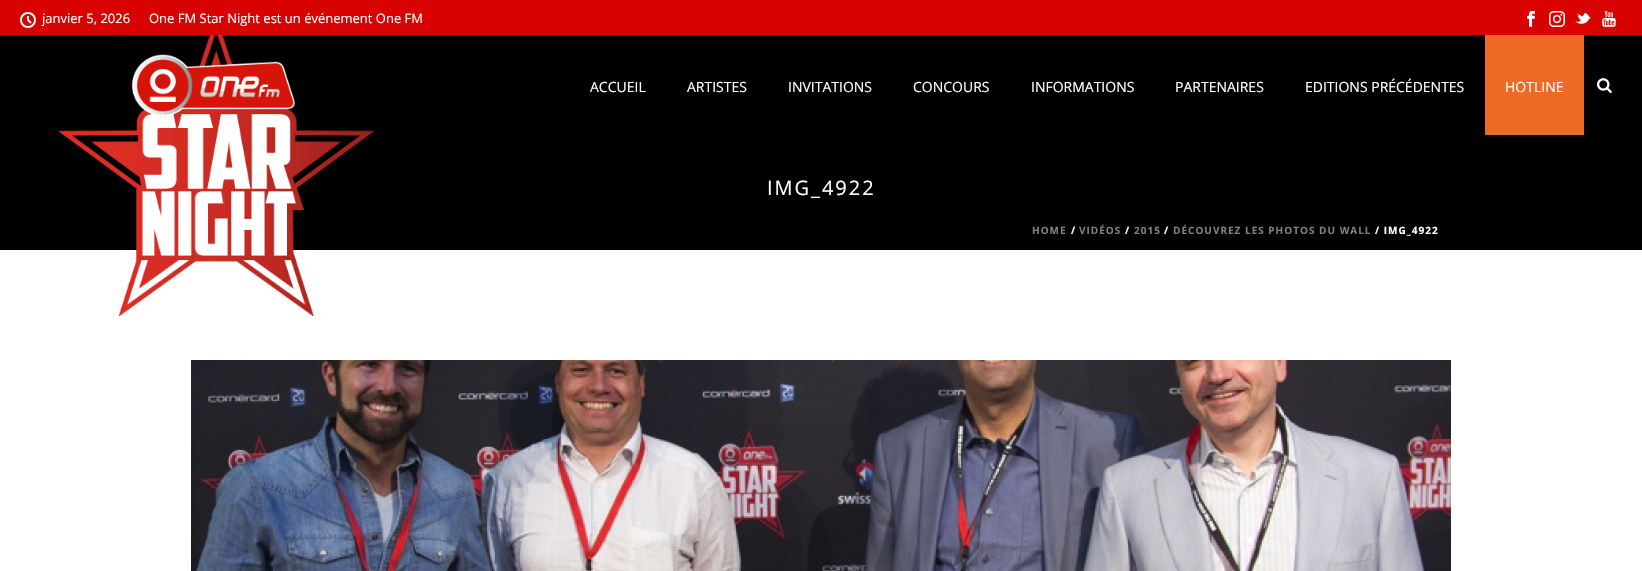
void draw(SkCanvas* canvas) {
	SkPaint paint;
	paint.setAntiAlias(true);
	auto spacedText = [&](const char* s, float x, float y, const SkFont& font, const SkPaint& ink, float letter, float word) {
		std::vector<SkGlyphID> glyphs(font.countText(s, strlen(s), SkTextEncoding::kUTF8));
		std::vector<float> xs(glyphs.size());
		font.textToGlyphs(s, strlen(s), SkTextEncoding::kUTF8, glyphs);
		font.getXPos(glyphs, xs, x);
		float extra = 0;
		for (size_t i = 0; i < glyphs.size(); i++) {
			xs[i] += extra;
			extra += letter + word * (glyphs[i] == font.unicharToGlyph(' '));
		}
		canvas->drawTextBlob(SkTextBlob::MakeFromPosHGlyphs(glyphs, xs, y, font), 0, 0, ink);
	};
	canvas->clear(0xffffffff);
	paint.setColor(0xff000000);
	canvas->drawRect(SkRect::MakeXYWH(0, 35, 1642, 215), paint);
	paint.setColor(0xffd80202);
	canvas->drawRect(SkRect::MakeXYWH(0, 0, 1642, 35), paint);
	canvas->drawImageRect(SkImages::DeferredFromEncodedData(SkData::MakeFromFileName("img1.png")), SkRect::MakeXYWH(20, 12, 16, 16), SkSamplingOptions());
	SkFont f1(fontMgr->matchFamilyStyle("Open Sans", SkFontStyle::Normal()), 13);
	f1.setSubpixel(true);
	paint.setColor(0xffffffff);
	canvas->drawString("janvier 5, 2026", 42, 23, f1, paint);
	canvas->drawString("One FM Star Night est un événement One FM", 149, 23, f1, paint);
	canvas->drawImageRect(SkImages::DeferredFromEncodedData(SkData::MakeFromFileName("img2.png")), SkRect::MakeXYWH(1527, 11, 8, 16), SkSamplingOptions());
	canvas->drawImageRect(SkImages::DeferredFromEncodedData(SkData::MakeFromFileName("img3.png")), SkRect::MakeXYWH(1549, 11, 16, 16), SkSamplingOptions());
	canvas->drawImageRect(SkImages::DeferredFromEncodedData(SkData::MakeFromFileName("img4.png")), SkRect::MakeXYWH(1575, 12, 16, 12), SkSamplingOptions());
	canvas->drawImageRect(SkImages::DeferredFromEncodedData(SkData::MakeFromFileName("img5.png")), SkRect::MakeXYWH(1602, 11, 14, 16), SkSamplingOptions());
	canvas->drawImageRect(SkImages::DeferredFromEncodedData(SkData::MakeFromFileName("img6.png")), SkRect::MakeXYWH(58, 35, 316, 281), SkSamplingOptions());
	SkFont f2(fontMgr->matchFamilyStyle("Open Sans", SkFontStyle::Normal()), 14);
	f2.setSubpixel(true);
	canvas->drawString("ACCUEIL", 590, 92, f2, paint);
	canvas->drawString("ARTISTES", 687, 92, f2, paint);
	canvas->drawString("INVITATIONS", 788, 92, f2, paint);
	canvas->drawString("CONCOURS", 913, 92, f2, paint);
	canvas->drawString("INFORMATIONS", 1031, 92, f2, paint);
	canvas->drawString("PARTENAIRES", 1175, 92, f2, paint);
	canvas->drawString("EDITIONS PRÉCÉDENTES", 1305, 92, f2, paint);
	paint.setColor(0xffef6926);
	canvas->drawRect(SkRect::MakeXYWH(1485, 35, 99, 100), paint);
	paint.setColor(0xffffffff);
	canvas->drawString("HOTLINE", 1505, 92, f2, paint);
	canvas->drawImageRect(SkImages::DeferredFromEncodedData(SkData::MakeFromFileName("img7.png")), SkRect::MakeXYWH(1597, 78, 15, 15), SkSamplingOptions());
	SkFont f3(fontMgr->matchFamilyStyle("Open Sans", SkFontStyle::Normal()), 20);
	f3.setSubpixel(true);
	spacedText("IMG_4922", 767, 195, f3, paint, 2, 0);
	SkFont f4(fontMgr->matchFamilyStyle("Open Sans", SkFontStyle::Bold()), 10);
	f4.setSubpixel(true);
	paint.setColor(0xff808080);
	spacedText("HOME", 1032, 234, f4, paint, 1, 0);
	paint.setColor(0xffffffff);
	spacedText("/", 1071, 234, f4, paint, 1, 0);
	paint.setColor(0xff808080);
	spacedText("VIDÉOS", 1079, 234, f4, paint, 1, 0);
	paint.setColor(0xffffffff);
	spacedText("/", 1125, 234, f4, paint, 1, 0);
	paint.setColor(0xff808080);
	spacedText("2015", 1134, 234, f4, paint, 1, 0);
	paint.setColor(0xffffffff);
	spacedText("/", 1164, 234, f4, paint, 1, 0);
	paint.setColor(0xff808080);
	spacedText("DÉCOUVREZ LES PHOTOS DU WALL", 1173, 234, f4, paint, 1, 0);
	paint.setColor(0xffffffff);
	spacedText("/ IMG_4922", 1375, 234, f4, paint, 1, 0);
	canvas->drawImageRect(SkImages::DeferredFromEncodedData(SkData::MakeFromFileName("img8.png")), SkRect::MakeXYWH(191, 360, 1260, 211), SkSamplingOptions());
}
